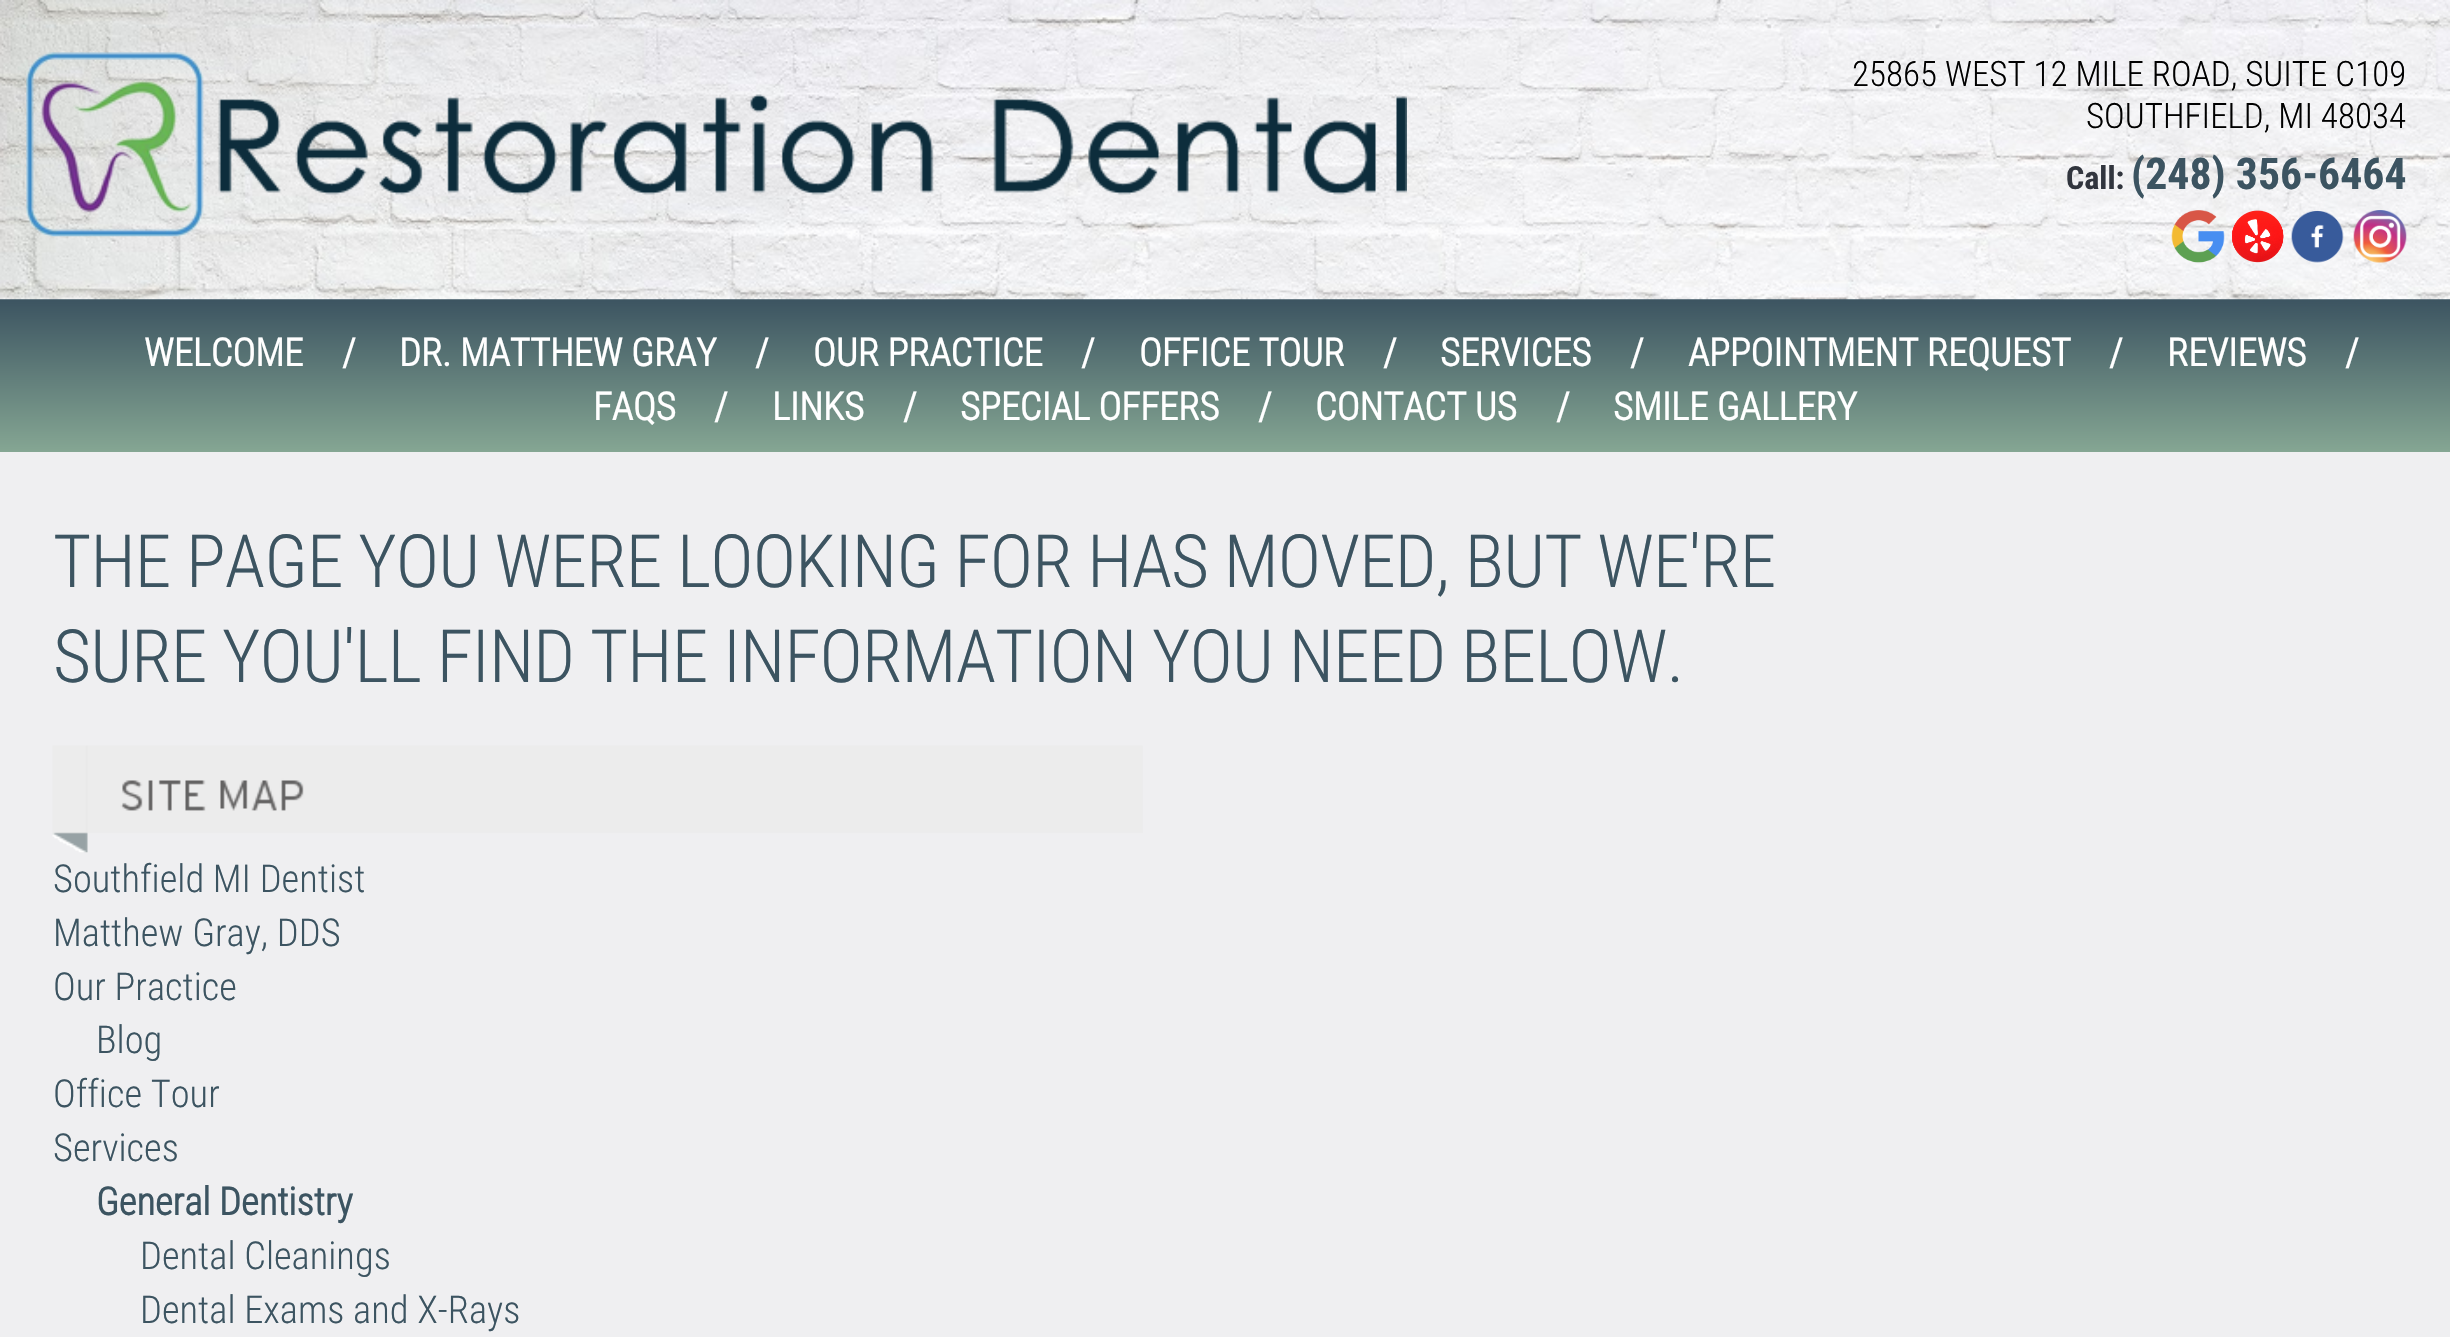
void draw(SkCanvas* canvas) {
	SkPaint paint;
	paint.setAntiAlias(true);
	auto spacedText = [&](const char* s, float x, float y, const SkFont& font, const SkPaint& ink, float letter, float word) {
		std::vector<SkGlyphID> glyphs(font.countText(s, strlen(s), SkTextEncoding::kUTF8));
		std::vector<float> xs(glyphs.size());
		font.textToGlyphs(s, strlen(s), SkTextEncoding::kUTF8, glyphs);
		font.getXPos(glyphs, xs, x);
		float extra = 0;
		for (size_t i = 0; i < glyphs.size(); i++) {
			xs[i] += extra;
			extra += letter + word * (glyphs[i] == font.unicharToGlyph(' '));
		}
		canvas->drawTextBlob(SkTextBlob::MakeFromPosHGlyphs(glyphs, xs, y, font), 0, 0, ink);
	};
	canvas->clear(0xffefeff1);
	{
		const SkColor colors[] = {0xff3c5461, 0xff85a693};
		const float stops[] = {0, 1};
		const SkPoint ends[] = {{1225, 299}, {1225, 452}};
		paint.setShader(SkGradientShader::MakeLinear(ends, colors, stops, 2, SkTileMode::kClamp));
		paint.setAlpha(255);
	}
	canvas->drawRect(SkRect::MakeXYWH(0, 299, 2450, 153), paint);
	canvas->drawImageRect(SkImages::DeferredFromEncodedData(SkData::MakeFromFileName("img1.png")), SkRect::MakeXYWH(0, 0, 2450, 300), SkSamplingOptions());
	canvas->drawImageRect(SkImages::DeferredFromEncodedData(SkData::MakeFromFileName("img2.png")), SkRect::MakeXYWH(26, 52, 1381, 185), SkSamplingOptions());
	SkFont f1(fontMgr->matchFamilyStyle("Roboto Condensed", SkFontStyle(300, SkFontStyle::kNormal_Width, SkFontStyle::kUpright_Slant)), 35);
	f1.setSubpixel(true);
	paint.setShader(nullptr);
	paint.setColor(0xff000000);
	canvas->drawString("25865 WEST 12 MILE ROAD, SUITE C109", 1852, 86, f1, paint);
	canvas->drawString("SOUTHFIELD, MI 48034", 2086, 128, f1, paint);
	SkFont f2(fontMgr->matchFamilyStyle("Roboto Condensed", SkFontStyle::Bold()), 32);
	f2.setSubpixel(true);
	paint.setColor(0xff31353e);
	canvas->drawString("Call:", 2066, 189, f2, paint);
	SkFont f3(fontMgr->matchFamilyStyle("Roboto Condensed", SkFontStyle::Bold()), 43.75);
	f3.setSubpixel(true);
	paint.setColor(0xff3c5461);
	canvas->drawString("(248) 356-6464", 2131, 189, f3, paint);
	canvas->drawImageRect(SkImages::DeferredFromEncodedData(SkData::MakeFromFileName("img3.png")), SkRect::MakeXYWH(2171, 210, 54, 53), SkSamplingOptions());
	canvas->drawImageRect(SkImages::DeferredFromEncodedData(SkData::MakeFromFileName("img4.png")), SkRect::MakeXYWH(2232, 210, 52, 53), SkSamplingOptions());
	canvas->drawImageRect(SkImages::DeferredFromEncodedData(SkData::MakeFromFileName("img5.png")), SkRect::MakeXYWH(2291, 210, 53, 53), SkSamplingOptions());
	canvas->drawImageRect(SkImages::DeferredFromEncodedData(SkData::MakeFromFileName("img6.png")), SkRect::MakeXYWH(2353, 210, 54, 53), SkSamplingOptions());
	SkFont f4(fontMgr->matchFamilyStyle("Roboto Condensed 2", SkFontStyle::Bold()), 38.5);
	f4.setSubpixel(true);
	paint.setColor(0xffffffff);
	canvas->drawString("WELCOME", 144, 366, f4, paint);
	canvas->drawString("/", 342, 366, f4, paint);
	canvas->drawString("DR. MATTHEW GRAY", 399, 366, f4, paint);
	canvas->drawString("/", 755, 366, f4, paint);
	canvas->drawString("OUR PRACTICE", 813, 366, f4, paint);
	canvas->drawString("/", 1081, 366, f4, paint);
	canvas->drawString("OFFICE TOUR", 1139, 366, f4, paint);
	canvas->drawString("/", 1383, 366, f4, paint);
	canvas->drawString("SERVICES", 1440, 366, f4, paint);
	canvas->drawString("/", 1630, 366, f4, paint);
	canvas->drawString("APPOINTMENT REQUEST", 1688, 366, f4, paint);
	canvas->drawString("/", 2109, 366, f4, paint);
	canvas->drawString("REVIEWS", 2167, 366, f4, paint);
	canvas->drawString("/", 2345, 366, f4, paint);
	canvas->drawString("FAQS", 593, 420, f4, paint);
	canvas->drawString("/", 714, 420, f4, paint);
	canvas->drawString("LINKS", 772, 420, f4, paint);
	canvas->drawString("/", 903, 420, f4, paint);
	canvas->drawString("SPECIAL OFFERS", 960, 420, f4, paint);
	canvas->drawString("/", 1258, 420, f4, paint);
	canvas->drawString("CONTACT US", 1315, 420, f4, paint);
	canvas->drawString("/", 1556, 420, f4, paint);
	canvas->drawString("SMILE GALLERY", 1613, 420, f4, paint);
	SkFont f5(fontMgr->matchFamilyStyle("Roboto Condensed", SkFontStyle(300, SkFontStyle::kNormal_Width, SkFontStyle::kUpright_Slant)), 73.5);
	f5.setSubpixel(true);
	paint.setColor(0xff3c5461);
	spacedText("THE PAGE YOU WERE LOOKING FOR HAS MOVED, BUT WE'RE", 53, 587, f5, paint, -0.88, 0);
	spacedText("SURE YOU'LL FIND THE INFORMATION YOU NEED BELOW.", 53, 682, f5, paint, -0.88, 0);
	canvas->drawImageRect(SkImages::DeferredFromEncodedData(SkData::MakeFromFileName("img7.png")), SkRect::MakeXYWH(52, 745, 1091, 108), SkSamplingOptions());
	SkFont f6(fontMgr->matchFamilyStyle("Roboto Condensed", SkFontStyle(300, SkFontStyle::kNormal_Width, SkFontStyle::kUpright_Slant)), 38.5);
	f6.setSubpixel(true);
	canvas->drawString("Southfield MI Dentist", 53, 892, f6, paint);
	canvas->drawString("Matthew Gray, DDS", 53, 946, f6, paint);
	canvas->drawString("Our Practice", 53, 1000, f6, paint);
	canvas->drawString("Blog", 96, 1053, f6, paint);
	canvas->drawString("Office Tour", 53, 1107, f6, paint);
	canvas->drawString("Services", 53, 1161, f6, paint);
	canvas->drawString("General Dentistry", 96, 1215, f4, paint);
	canvas->drawString("Dental Cleanings", 140, 1269, f6, paint);
	canvas->drawString("Dental Exams and X-Rays", 140, 1323, f6, paint);
}
